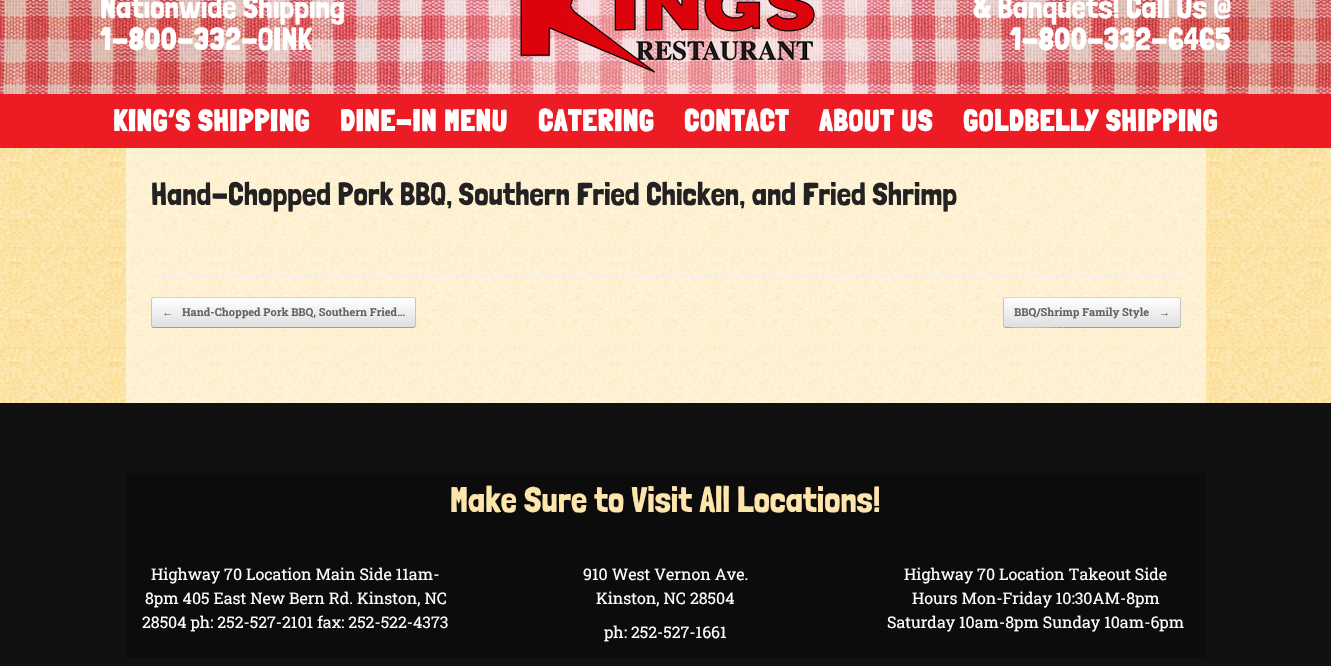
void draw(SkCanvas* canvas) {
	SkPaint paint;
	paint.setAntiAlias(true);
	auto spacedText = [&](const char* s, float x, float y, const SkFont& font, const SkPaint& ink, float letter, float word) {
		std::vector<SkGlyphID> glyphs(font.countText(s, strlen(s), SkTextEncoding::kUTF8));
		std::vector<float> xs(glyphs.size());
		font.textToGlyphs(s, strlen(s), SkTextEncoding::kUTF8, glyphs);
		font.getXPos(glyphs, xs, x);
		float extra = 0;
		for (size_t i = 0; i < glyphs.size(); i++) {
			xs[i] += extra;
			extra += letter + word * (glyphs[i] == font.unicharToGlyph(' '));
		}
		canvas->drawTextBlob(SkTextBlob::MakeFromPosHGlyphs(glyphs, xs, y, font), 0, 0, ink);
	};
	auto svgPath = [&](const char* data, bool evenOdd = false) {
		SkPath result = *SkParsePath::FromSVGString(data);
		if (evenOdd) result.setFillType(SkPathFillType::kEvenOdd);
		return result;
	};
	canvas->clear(0xff111111);
	canvas->drawImageRect(SkImages::DeferredFromEncodedData(SkData::MakeFromFileName("img1.png")), SkRect::MakeXYWH(0, 0, 1331, 94), SkSamplingOptions());
	SkFont f1(fontMgr->matchFamilyStyle("Londrina Solid", SkFontStyle::Normal()), 32);
	f1.setSubpixel(true);
	paint.setColor(0xffffffff);
	canvas->drawString("Nationwide Shipping", 100, 18, f1, paint);
	canvas->drawString("1-800-332-OINK", 100, 50, f1, paint);
	canvas->drawImageRect(SkImages::DeferredFromEncodedData(SkData::MakeFromFileName("img2.png")), SkRect::MakeXYWH(520, 0, 295, 73), SkSamplingOptions());
	canvas->drawString("& Banquets! Call Us @", 973, 18, f1, paint);
	canvas->drawString("1-800-332-6465", 1010, 50, f1, paint);
	paint.setColor(0xffed1c24);
	canvas->drawRect(SkRect::MakeXYWH(0, 94, 1331, 54), paint);
	SkFont f2(fontMgr->matchFamilyStyle("Londrina Solid", SkFontStyle::Bold()), 30);
	f2.setSubpixel(true);
	paint.setColor(0xffffffff);
	spacedText("KING’S SHIPPING", 113, 131, f2, paint, 1, 0);
	spacedText("DINE-IN MENU", 340, 131, f2, paint, 1, 0);
	spacedText("CATERING", 538, 131, f2, paint, 1, 0);
	spacedText("CONTACT", 684, 131, f2, paint, 1, 0);
	spacedText("ABOUT US", 819, 131, f2, paint, 1, 0);
	spacedText("GOLDBELLY SHIPPING", 963, 131, f2, paint, 1, 0);
	canvas->drawImageRect(SkImages::DeferredFromEncodedData(SkData::MakeFromFileName("img3.png")), SkRect::MakeXYWH(0, 148, 1331, 255), SkSamplingOptions());
	paint.setColor(0x80ffffff);
	canvas->drawRect(SkRect::MakeXYWH(126, 148, 1080, 255), paint);
	paint.setColor(0xffeeeeee);
	canvas->drawRect(SkRect::MakeXYWH(151, 276, 1030, 1), paint);
	paint.setColor(0xff222222);
	canvas->drawString("Hand-Chopped Pork BBQ, Southern Fried Chicken, and Fried Shrimp", 151, 205, f1, paint);
	canvas->save();
	canvas->clipPath(svgPath("M154 297H413C414.5 297 416 298.5 416 300V325C416 326.5 414.5 328 413 328H154C152.5 328 151 326.5 151 325V300C151 298.5 152.5 297 154 297Z"), true);
	{
		const SkColor colors[] = {0xffdfdfdf, 0xffffffff};
		const float stops[] = {0, 1};
		const SkPoint ends[] = {{152, 327}, {152, 298}};
		paint.setShader(SkGradientShader::MakeLinear(ends, colors, stops, 2, SkTileMode::kClamp));
		paint.setAlpha(255);
	}
	canvas->drawRect(SkRect::MakeXYWH(151, 298, 265, 29), paint);
	canvas->restore();
	paint.setStroke(true);
	paint.setStrokeWidth(1);
	paint.setShader(nullptr);
	paint.setColor(0xffd2d2d2);
	canvas->drawPath(svgPath("M152 298L154 297.5H413L415 298"), paint);
	paint.setColor(0xffc3c3c3);
	canvas->drawPath(svgPath("M415 298C415 298.5 415.5 299.5 415.5 300V325C415.5 325.5 415 326.5 415 327"), paint);
	paint.setColor(0xff9f9f9f);
	canvas->drawPath(svgPath("M415 327L413 327.5H154L152 327"), paint);
	paint.setColor(0xffc3c3c3);
	canvas->drawPath(svgPath("M152 327C152 326.5 151.5 325.5 151.5 325V300C151.5 299.5 152 298.5 152 298"), paint);
	SkFont f3(fontMgr->matchFamilyStyle("Liberation Serif", SkFontStyle::Bold()), 11);
	f3.setSubpixel(true);
	paint.setStroke(false);
	paint.setColor(0xff646464);
	canvas->drawString("←", 162, 316, f3, paint);
	SkFont f4(fontMgr->matchFamilyStyle("Roboto Slab", SkFontStyle::Bold()), 11);
	f4.setSubpixel(true);
	canvas->drawString("Hand-Chopped Pork BBQ, Southern Fried…", 182, 316, f4, paint);
	canvas->save();
	canvas->clipPath(svgPath("M1006 297H1178C1179.5 297 1181 298.5 1181 300V325C1181 326.5 1179.5 328 1178 328H1006C1004.5 328 1003 326.5 1003 325V300C1003 298.5 1004.5 297 1006 297Z"), true);
	{
		const SkColor colors[] = {0xffdfdfdf, 0xffffffff};
		const float stops[] = {0, 1};
		const SkPoint ends[] = {{1004, 298}, {1004, 269}};
		paint.setShader(SkGradientShader::MakeLinear(ends, colors, stops, 2, SkTileMode::kClamp));
		paint.setAlpha(255);
	}
	canvas->drawRect(SkRect::MakeXYWH(1003, 297, 178, 1), paint);
	{
		const SkColor colors[] = {0xffdfdfdf, 0xffffffff};
		const float stops[] = {0, 1};
		const SkPoint ends[] = {{1004, 327}, {1004, 298}};
		paint.setShader(SkGradientShader::MakeLinear(ends, colors, stops, 2, SkTileMode::kClamp));
		paint.setAlpha(255);
	}
	canvas->drawRect(SkRect::MakeXYWH(1003, 298, 178, 29), paint);
	{
		const SkColor colors[] = {0xffdfdfdf, 0xffffffff};
		const float stops[] = {0, 1};
		const SkPoint ends[] = {{1004, 356}, {1004, 327}};
		paint.setShader(SkGradientShader::MakeLinear(ends, colors, stops, 2, SkTileMode::kClamp));
		paint.setAlpha(255);
	}
	canvas->drawRect(SkRect::MakeXYWH(1003, 327, 178, 1), paint);
	canvas->restore();
	canvas->save();
	canvas->clipRect(SkRect::MakeXYWH(151, 297, 1030, 31));
	paint.setStroke(true);
	paint.setShader(nullptr);
	paint.setColor(0xffd2d2d2);
	canvas->drawPath(svgPath("M1004 298C1006 296.5 1059.5 297.5 1063.5 297.5H1178L1180 298"), paint);
	canvas->restore();
	paint.setColor(0xffc3c3c3);
	canvas->drawPath(svgPath("M1180 298C1180 298.5 1180.5 299.5 1180.5 300V325C1180.5 325.5 1180 326.5 1180 327"), paint);
	canvas->save();
	canvas->clipRect(SkRect::MakeXYWH(151, 297, 1030, 31));
	paint.setColor(0xff9f9f9f);
	canvas->drawPath(svgPath("M1180 327L1178 327.5H1063.5C1059.5 327.5 1006 328.5 1004 327"), paint);
	canvas->restore();
	paint.setColor(0xffc3c3c3);
	canvas->drawPath(svgPath("M1004 327C1004 326.5 1003.5 325.5 1003.5 325V300C1003.5 299.5 1004 298.5 1004 298"), paint);
	paint.setStroke(false);
	paint.setColor(0xff646464);
	canvas->drawString("BBQ/Shrimp Family Style", 1014, 316, f4, paint);
	canvas->drawString("→", 1159, 316, f3, paint);
	paint.setColor(0xff0c0c0c);
	canvas->drawRect(SkRect::MakeXYWH(126, 473, 1080, 185), paint);
	SkFont f5(fontMgr->matchFamilyStyle("Londrina Solid", SkFontStyle::Normal()), 36);
	f5.setSubpixel(true);
	paint.setColor(0xfffde5ab);
	canvas->drawString("Make Sure to Visit All Locations!", 450, 512, f5, paint);
	SkFont f6(fontMgr->matchFamilyStyle("Roboto Slab", SkFontStyle::Normal()), 16);
	f6.setSubpixel(true);
	paint.setColor(0xffffffff);
	canvas->drawString("Highway 70 Location Main Side 11am-", 151, 580, f6, paint);
	canvas->drawString("8pm 405 East New Bern Rd. Kinston, NC", 145, 604, f6, paint);
	canvas->drawString("28504 ph: 252-527-2101 fax: 252-522-4373", 142, 628, f6, paint);
	canvas->drawString("910 West Vernon Ave.", 583, 580, f6, paint);
	canvas->drawString("Kinston, NC 28504", 596, 604, f6, paint);
	canvas->drawString("ph: 252-527-1661", 604, 638, f6, paint);
	canvas->drawString("Highway 70 Location Takeout Side", 904, 580, f6, paint);
	canvas->drawString("Hours Mon-Friday 10:30AM-8pm", 912, 604, f6, paint);
	canvas->drawString("Saturday 10am-8pm Sunday 10am-6pm", 887, 628, f6, paint);
}
